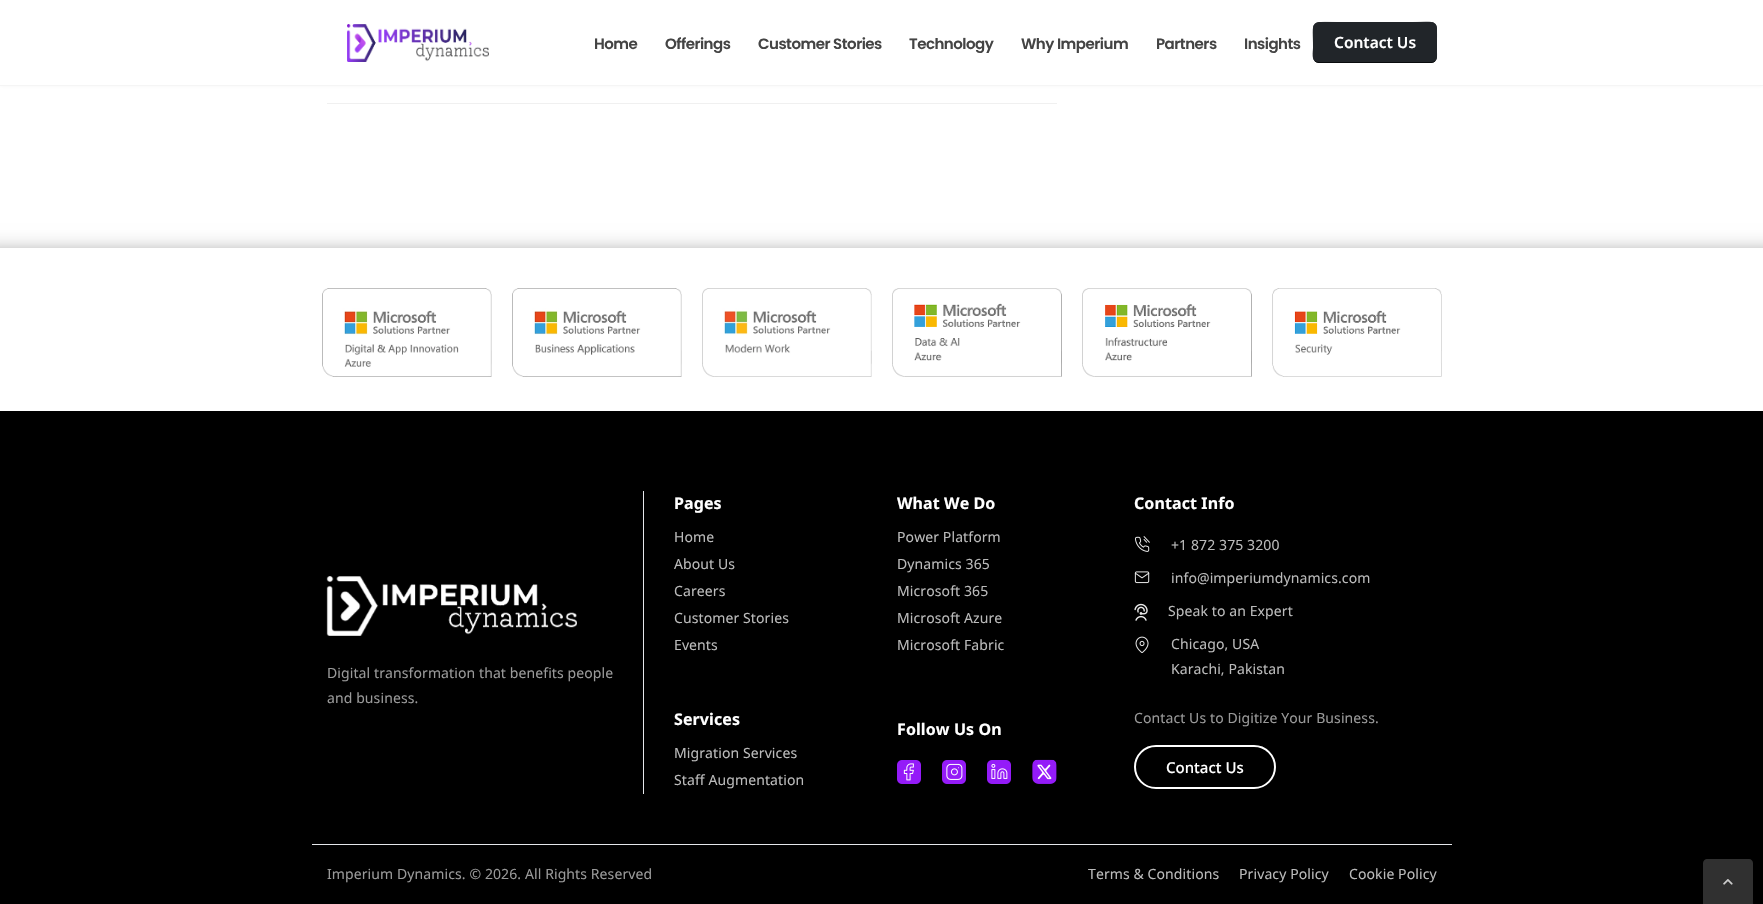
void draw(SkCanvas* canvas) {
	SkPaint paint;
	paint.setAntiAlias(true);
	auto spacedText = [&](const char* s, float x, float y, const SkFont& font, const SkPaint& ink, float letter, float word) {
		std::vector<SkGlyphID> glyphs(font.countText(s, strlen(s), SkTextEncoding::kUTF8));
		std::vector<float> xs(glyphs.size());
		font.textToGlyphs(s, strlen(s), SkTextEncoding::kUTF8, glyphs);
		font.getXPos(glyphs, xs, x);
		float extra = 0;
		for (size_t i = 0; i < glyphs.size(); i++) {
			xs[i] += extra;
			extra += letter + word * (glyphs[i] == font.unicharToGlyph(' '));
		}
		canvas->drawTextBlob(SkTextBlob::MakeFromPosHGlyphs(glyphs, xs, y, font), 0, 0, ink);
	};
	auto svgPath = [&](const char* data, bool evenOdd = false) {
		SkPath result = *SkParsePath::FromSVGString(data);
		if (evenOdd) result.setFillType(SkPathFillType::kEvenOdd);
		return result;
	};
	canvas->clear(0xffffffff);
	paint.setColor(0x80eaeaea);
	paint.setMaskFilter(SkMaskFilter::MakeBlur(kNormal_SkBlurStyle, 1.5));
	canvas->drawRect(SkRect::MakeXYWH(0, 0, 1763, 86), paint);
	paint.setMaskFilter(nullptr);
	paint.setColor(0xffffffff);
	canvas->drawRect(SkRect::MakeXYWH(0, 0, 1763, 85), paint);
	paint.setColor(0xfff5f5f5);
	canvas->drawRect(SkRect::MakeXYWH(0, 85, 1763, 1), paint);
	canvas->drawImageRect(SkImages::DeferredFromEncodedData(SkData::MakeFromFileName("img1.png")), SkRect::MakeXYWH(347, 24, 142, 38), SkSamplingOptions());
	SkFont f1(fontMgr->matchFamilyStyle("Poppins", SkFontStyle(600, SkFontStyle::kNormal_Width, SkFontStyle::kUpright_Slant)), 15);
	f1.setSubpixel(true);
	paint.setColor(0xff444444);
	spacedText("Home", 594, 49, f1, paint, -0.5, 0);
	spacedText("Offerings", 665, 49, f1, paint, -0.5, 0);
	spacedText("Customer Stories", 758, 49, f1, paint, -0.5, 0);
	spacedText("Technology", 909, 49, f1, paint, -0.5, 0);
	spacedText("Why Imperium", 1021, 49, f1, paint, -0.5, 0);
	spacedText("Partners", 1156, 49, f1, paint, -0.5, 0);
	spacedText("Insights", 1244, 49, f1, paint, -0.5, 0);
	paint.setColor(0xff212529);
	canvas->drawRoundRect(SkRect::MakeXYWH(1313, 22, 124, 41), 6, 6, paint);
	paint.setStroke(true);
	paint.setStrokeWidth(1);
	paint.setColor(0xff0a0c0d);
	canvas->drawPath(svgPath("M1435 61C1434 62 1432.5 62.5 1431 62.5H1319C1317.5 62.5 1316 62 1315 61"), paint);
	paint.setColor(0xff212529);
	canvas->drawPath(svgPath("M1315 61C1312 58 1313.5 51 1313.5 47.5C1313.5 19.5 1309 22.5 1337.5 22.5H1412.5C1438.5 22.5 1436.5 18.5 1436.5 42.5V52C1436.5 55 1437 58.5 1435 61"), paint);
	SkFont f2(fontMgr->matchFamilyStyle("Noto Sans", SkFontStyle(600, SkFontStyle::kNormal_Width, SkFontStyle::kUpright_Slant)), 15.5);
	f2.setSubpixel(true);
	paint.setStroke(false);
	paint.setColor(0xffffffff);
	canvas->drawString("Contact Us", 1334, 48, f2, paint);
	paint.setColor(0xfff0f0f0);
	canvas->drawRect(SkRect::MakeXYWH(327, 103, 730, 1), paint);
	paint.setColor(0x73000000);
	paint.setMaskFilter(SkMaskFilter::MakeBlur(kNormal_SkBlurStyle, 10));
	canvas->drawRect(SkRect::MakeXYWH(-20, 253, 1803, 203), paint);
	paint.setMaskFilter(nullptr);
	paint.setColor(0xffffffff);
	canvas->drawRect(SkRect::MakeXYWH(0, 248, 1763, 163), paint);
	canvas->drawImageRect(SkImages::DeferredFromEncodedData(SkData::MakeFromFileName("img2.png")), SkRect::MakeXYWH(322, 288, 170, 89), SkSamplingOptions());
	canvas->drawImageRect(SkImages::DeferredFromEncodedData(SkData::MakeFromFileName("img3.png")), SkRect::MakeXYWH(512, 288, 170, 89), SkSamplingOptions());
	canvas->drawImageRect(SkImages::DeferredFromEncodedData(SkData::MakeFromFileName("img4.png")), SkRect::MakeXYWH(702, 288, 170, 89), SkSamplingOptions());
	canvas->drawImageRect(SkImages::DeferredFromEncodedData(SkData::MakeFromFileName("img5.png")), SkRect::MakeXYWH(892, 288, 170, 89), SkSamplingOptions());
	canvas->drawImageRect(SkImages::DeferredFromEncodedData(SkData::MakeFromFileName("img6.png")), SkRect::MakeXYWH(1082, 288, 170, 89), SkSamplingOptions());
	canvas->drawImageRect(SkImages::DeferredFromEncodedData(SkData::MakeFromFileName("img7.png")), SkRect::MakeXYWH(1272, 288, 170, 89), SkSamplingOptions());
	paint.setColor(0xff000000);
	canvas->drawRect(SkRect::MakeXYWH(0, 411, 1763, 493), paint);
	paint.setColor(0xffe5e7eb);
	canvas->drawRect(SkRect::MakeXYWH(643, 491, 1, 303), paint);
	canvas->drawImageRect(SkImages::DeferredFromEncodedData(SkData::MakeFromFileName("img8.png")), SkRect::MakeXYWH(326, 576, 251, 60), SkSamplingOptions());
	SkFont f3(fontMgr->matchFamilyStyle("Noto Sans", SkFontStyle::Normal()), 14);
	f3.setSubpixel(true);
	paint.setColor(0xff999999);
	spacedText("Digital transformation that benefits people", 327, 678, f3, paint, 0.1, 0);
	spacedText("and business.", 327, 703, f3, paint, 0.1, 0);
	SkFont f4(fontMgr->matchFamilyStyle("Noto Sans", SkFontStyle::Bold()), 16);
	f4.setSubpixel(true);
	paint.setColor(0xffffffff);
	spacedText("Pages", 674, 509, f4, paint, 0.1, 0);
	paint.setColor(0xffbababa);
	spacedText("Home", 674, 542, f3, paint, 0.1, 0);
	spacedText("About Us", 674, 569, f3, paint, 0.1, 0);
	spacedText("Careers", 674, 596, f3, paint, 0.1, 0);
	spacedText("Customer Stories", 674, 623, f3, paint, 0.1, 0);
	spacedText("Events", 674, 650, f3, paint, 0.1, 0);
	paint.setColor(0xffffffff);
	spacedText("Services", 674, 725, f4, paint, 0.1, 0);
	paint.setColor(0xffbababa);
	spacedText("Migration Services", 674, 758, f3, paint, 0.1, 0);
	spacedText("Staff Augmentation", 674, 785, f3, paint, 0.1, 0);
	paint.setColor(0xffffffff);
	spacedText("What We Do", 897, 509, f4, paint, 0.1, 0);
	paint.setColor(0xffbababa);
	spacedText("Power Platform", 897, 542, f3, paint, 0.1, 0);
	spacedText("Dynamics 365", 897, 569, f3, paint, 0.1, 0);
	spacedText("Microsoft 365", 897, 596, f3, paint, 0.1, 0);
	spacedText("Microsoft Azure", 897, 623, f3, paint, 0.1, 0);
	spacedText("Microsoft Fabric", 897, 650, f3, paint, 0.1, 0);
	paint.setColor(0xffffffff);
	spacedText("Contact Info", 1134, 509, f4, paint, 0.1, 0);
	canvas->drawImageRect(SkImages::DeferredFromEncodedData(SkData::MakeFromFileName("img9.png")), SkRect::MakeXYWH(1135, 536, 15, 16), SkSamplingOptions());
	paint.setColor(0xffbababa);
	spacedText("+1 872 375 3200", 1171, 550, f3, paint, 0.1, 0);
	canvas->drawImageRect(SkImages::DeferredFromEncodedData(SkData::MakeFromFileName("img10.png")), SkRect::MakeXYWH(1134, 571, 16, 13), SkSamplingOptions());
	spacedText("info@imperiumdynamics.com", 1171, 583, f3, paint, 0.1, 0);
	canvas->drawImageRect(SkImages::DeferredFromEncodedData(SkData::MakeFromFileName("img11.png")), SkRect::MakeXYWH(1134, 603, 14, 18), SkSamplingOptions());
	spacedText("Speak to an Expert", 1168, 616, f3, paint, 0.1, 0);
	canvas->drawImageRect(SkImages::DeferredFromEncodedData(SkData::MakeFromFileName("img12.png")), SkRect::MakeXYWH(1135, 636, 14, 17), SkSamplingOptions());
	spacedText("Chicago, USA", 1171, 649, f3, paint, 0.1, 0);
	spacedText("Karachi, Pakistan", 1171, 674, f3, paint, 0.1, 0);
	paint.setColor(0xffffffff);
	spacedText("Follow Us On", 897, 735, f4, paint, 0.1, 0);
	canvas->drawImageRect(SkImages::DeferredFromEncodedData(SkData::MakeFromFileName("img13.png")), SkRect::MakeXYWH(897, 760, 24, 24), SkSamplingOptions());
	canvas->drawImageRect(SkImages::DeferredFromEncodedData(SkData::MakeFromFileName("img14.png")), SkRect::MakeXYWH(942, 760, 24, 24), SkSamplingOptions());
	canvas->drawImageRect(SkImages::DeferredFromEncodedData(SkData::MakeFromFileName("img15.png")), SkRect::MakeXYWH(987, 760, 24, 24), SkSamplingOptions());
	canvas->drawImageRect(SkImages::DeferredFromEncodedData(SkData::MakeFromFileName("img16.png")), SkRect::MakeXYWH(1032, 759, 25, 25), SkSamplingOptions());
	paint.setColor(0xff999999);
	spacedText("Contact Us to Digitize Your Business.", 1134, 723, f3, paint, 0.1, 0);
	paint.setStroke(true);
	paint.setStrokeWidth(2);
	paint.setColor(0xffffffff);
	canvas->drawRoundRect(SkRect::MakeXYWH(1135, 746, 140, 42), 21, 21, paint);
	SkFont f5(fontMgr->matchFamilyStyle("Noto Sans", SkFontStyle(500, SkFontStyle::kNormal_Width, SkFontStyle::kUpright_Slant)), 15);
	f5.setSubpixel(true);
	paint.setStroke(false);
	canvas->drawString("Contact Us", 1166, 773, f5, paint);
	paint.setColor(0xffe5e7eb);
	canvas->drawRect(SkRect::MakeXYWH(312, 844, 1140, 1), paint);
	paint.setColor(0xff999999);
	spacedText("Imperium Dynamics. © 2026. All Rights Reserved", 327, 879, f3, paint, 0.1, 0);
	paint.setColor(0xffbababa);
	spacedText("Terms & Conditions", 1088, 879, f3, paint, 0.1, 0);
	spacedText("Privacy Policy", 1239, 879, f3, paint, 0.1, 0);
	spacedText("Cookie Policy", 1349, 879, f3, paint, 0.1, 0);
	paint.setColor(0xff303030);
	canvas->drawPath(svgPath("M1707 859H1749C1751 859 1753 861 1753 863V904H1703V863C1703 861 1705 859 1707 859Z"), paint);
	canvas->drawImageRect(SkImages::DeferredFromEncodedData(SkData::MakeFromFileName("img17.png")), SkRect::MakeXYWH(1723, 879, 10, 6), SkSamplingOptions());
}
